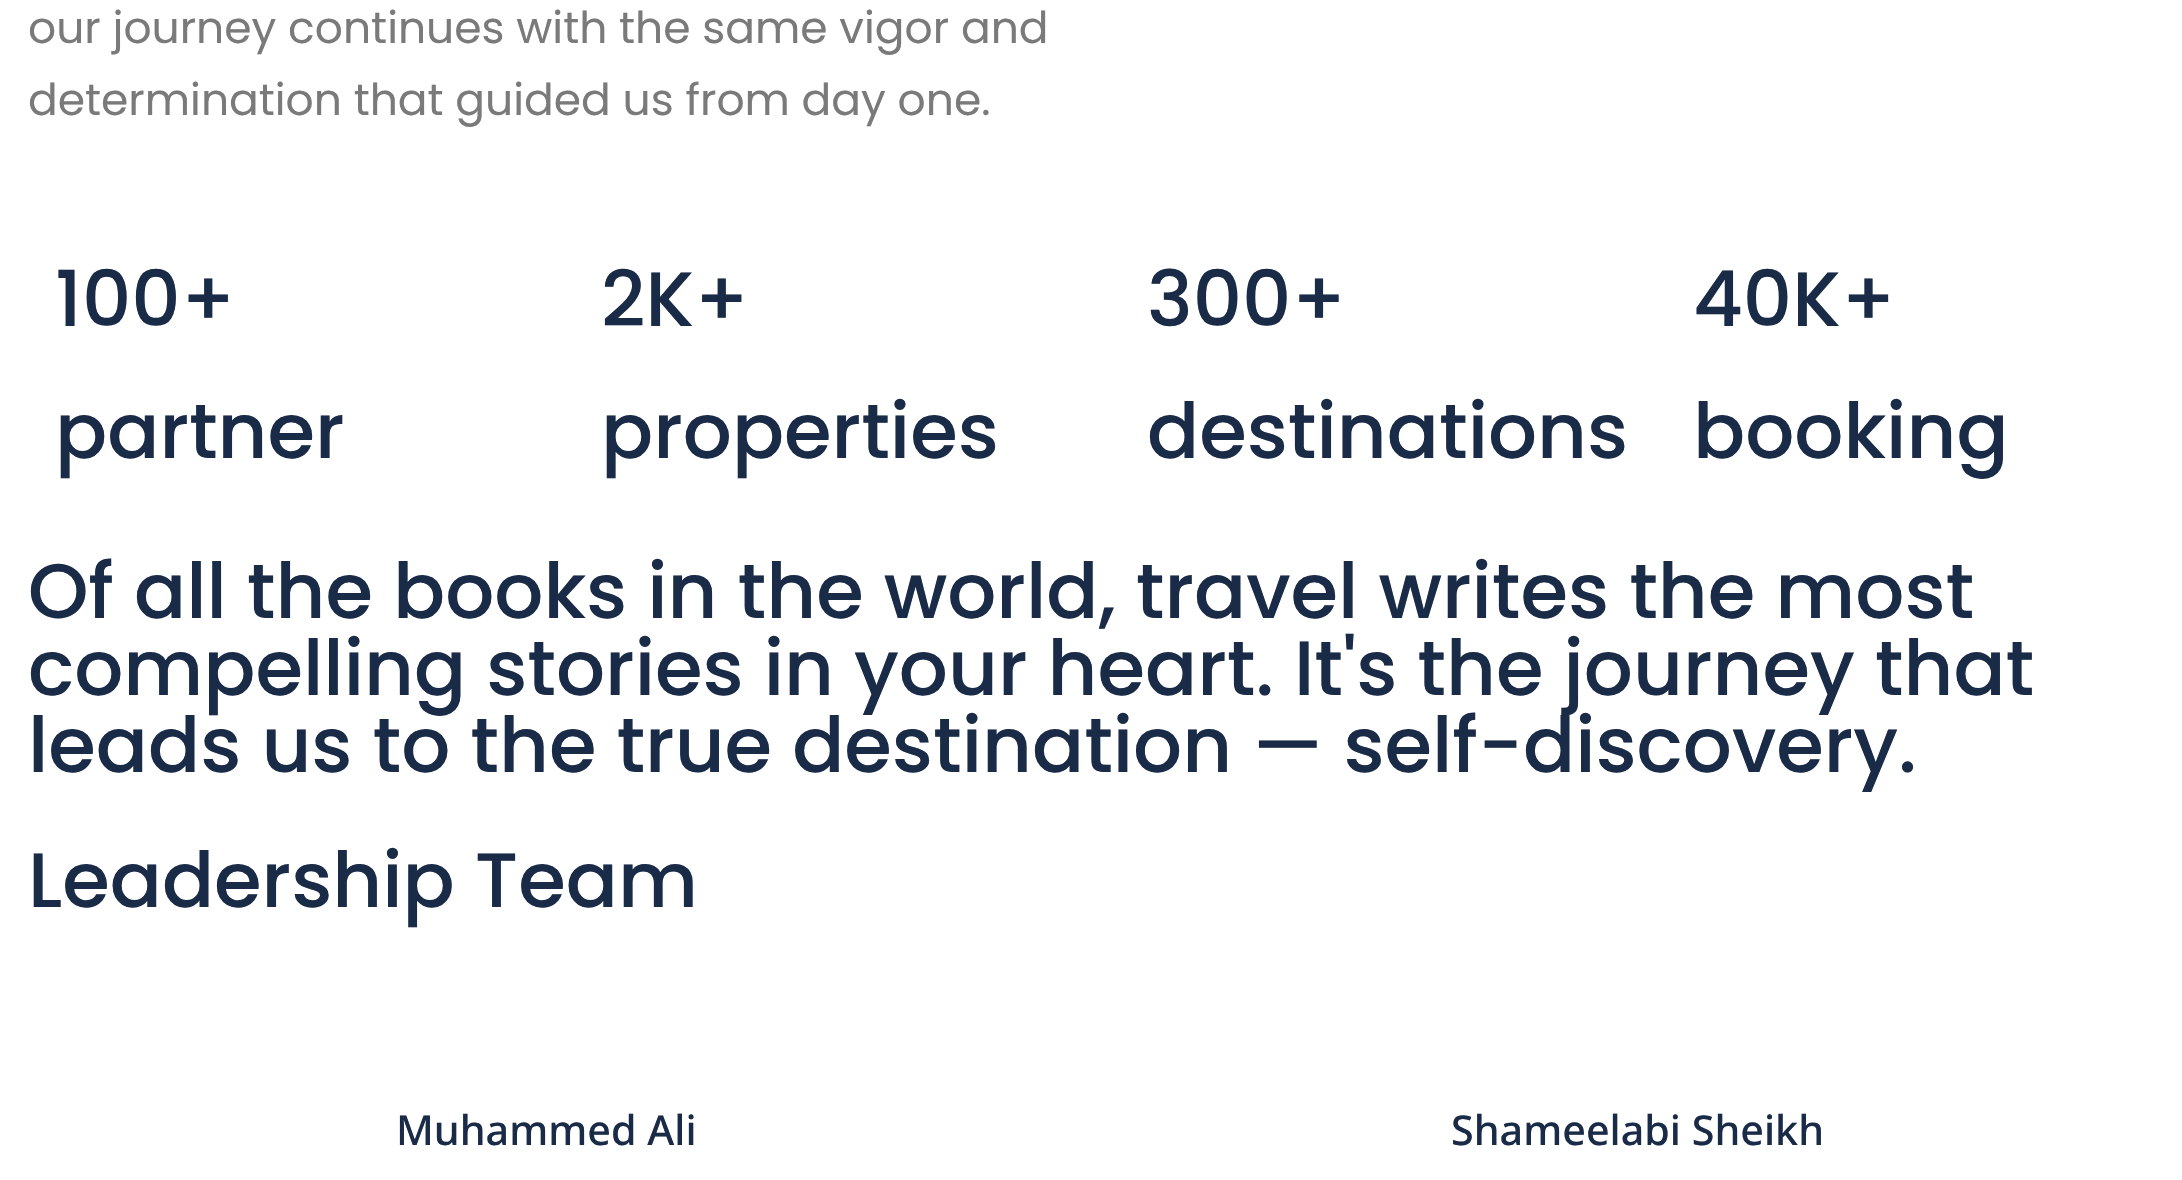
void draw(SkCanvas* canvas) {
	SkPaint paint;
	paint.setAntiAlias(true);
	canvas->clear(0xffffffff);
	SkFont f1(fontMgr->matchFamilyStyle("Poppins", SkFontStyle::Normal()), 44);
	f1.setSubpixel(true);
	paint.setColor(0xff7a7a7a);
	canvas->drawString("our journey continues with the same vigor and", 28, 43, f1, paint);
	canvas->drawString("determination that guided us from day one.", 28, 115, f1, paint);
	SkFont f2(fontMgr->matchFamilyStyle("Poppins", SkFontStyle(500, SkFontStyle::kNormal_Width, SkFontStyle::kUpright_Slant)), 77);
	f2.setSubpixel(true);
	paint.setColor(0xff1a2b48);
	canvas->drawString("100+", 55, 326, f2, paint);
	canvas->drawString("partner", 55, 458, f2, paint);
	canvas->drawString("2K+", 601, 326, f2, paint);
	canvas->drawString("properties", 601, 458, f2, paint);
	canvas->drawString("300+", 1147, 326, f2, paint);
	canvas->drawString("destinations", 1147, 458, f2, paint);
	canvas->drawString("40K+", 1693, 326, f2, paint);
	canvas->drawString("booking", 1693, 458, f2, paint);
	canvas->drawString("Of all the books in the world, travel writes the most", 28, 618, f2, paint);
	canvas->drawString("compelling stories in your heart. It's the journey that", 28, 695, f2, paint);
	canvas->drawString("leads us to the true destination — self-discovery.", 28, 772, f2, paint);
	canvas->drawString("Leadership Team", 28, 907, f2, paint);
	SkFont f3(fontMgr->matchFamilyStyle("Noto Sans", SkFontStyle(500, SkFontStyle::kNormal_Width, SkFontStyle::kUpright_Slant)), 41.25);
	f3.setSubpixel(true);
	canvas->drawString("Muhammed Ali", 396, 1145, f3, paint);
	canvas->drawString("Shameelabi Sheikh", 1451, 1145, f3, paint);
}
